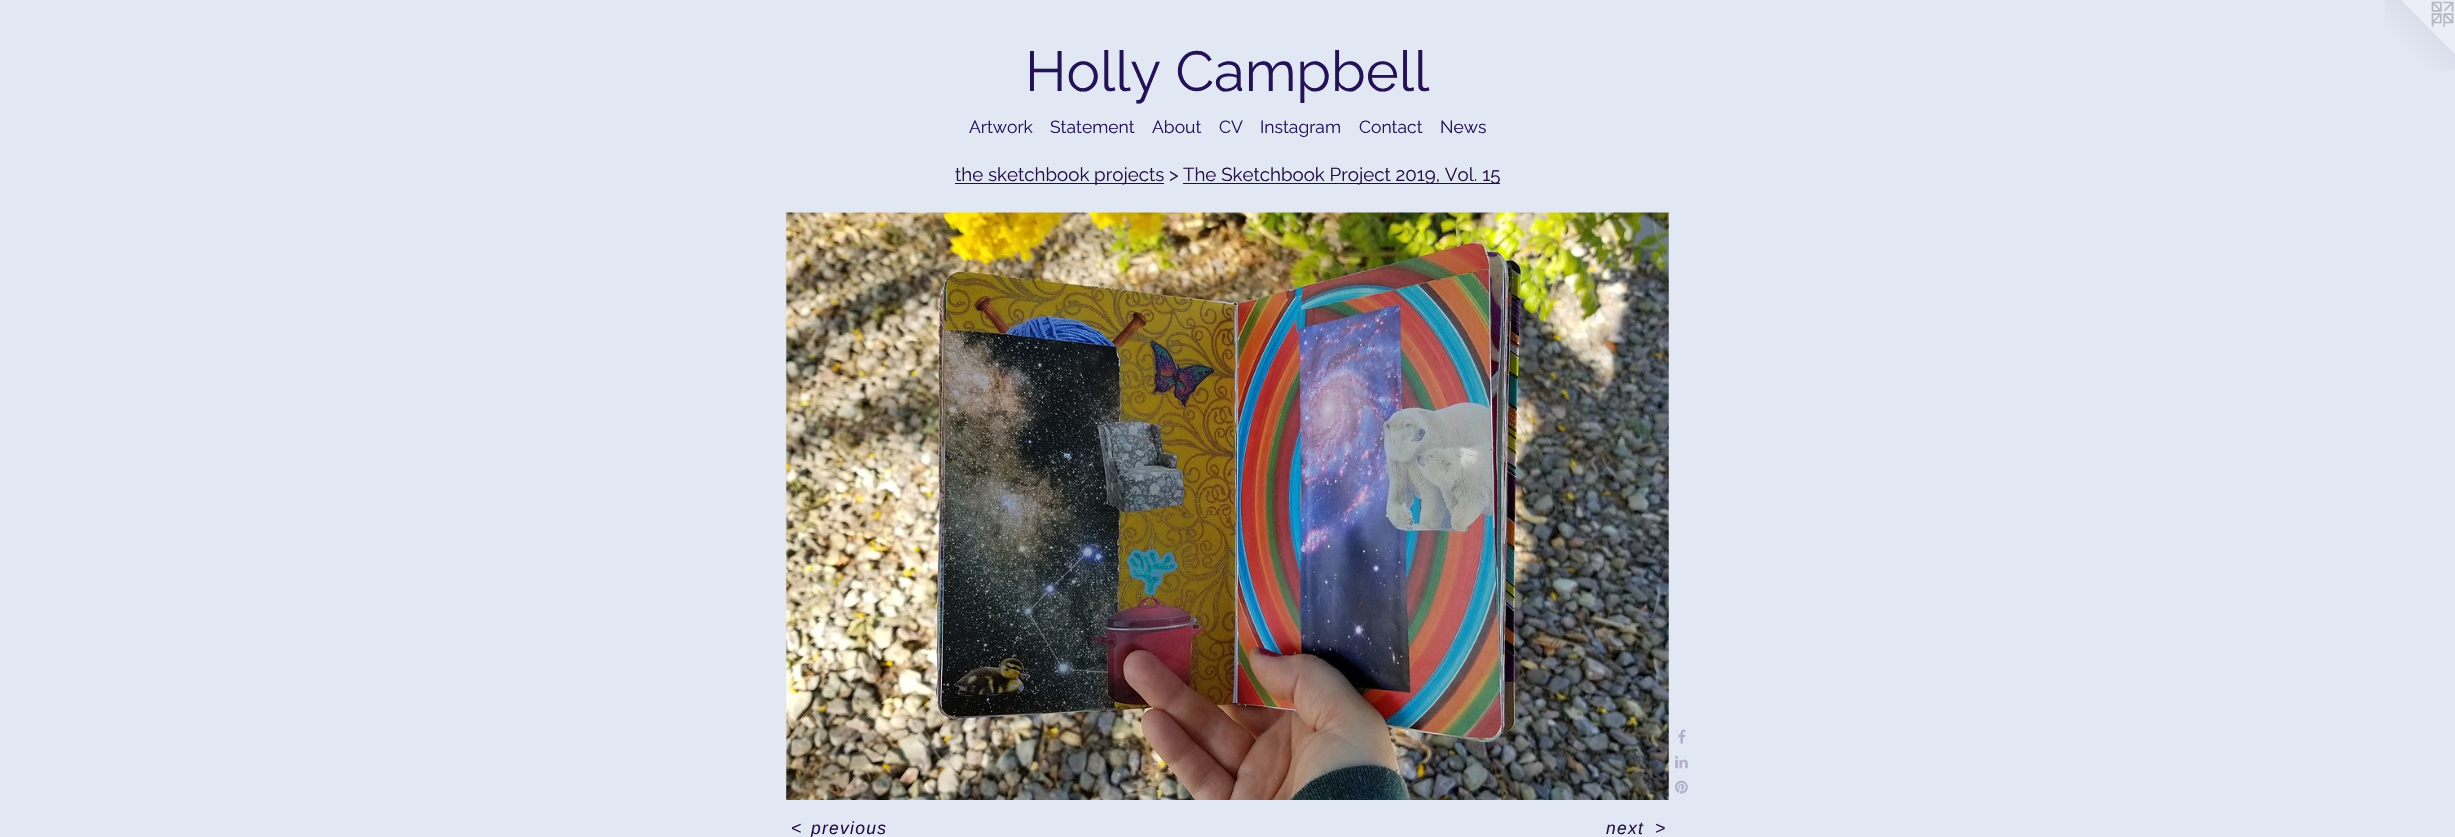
void draw(SkCanvas* canvas) {
	SkPaint paint;
	paint.setAntiAlias(true);
	auto spacedText = [&](const char* s, float x, float y, const SkFont& font, const SkPaint& ink, float letter, float word) {
		std::vector<SkGlyphID> glyphs(font.countText(s, strlen(s), SkTextEncoding::kUTF8));
		std::vector<float> xs(glyphs.size());
		font.textToGlyphs(s, strlen(s), SkTextEncoding::kUTF8, glyphs);
		font.getXPos(glyphs, xs, x);
		float extra = 0;
		for (size_t i = 0; i < glyphs.size(); i++) {
			xs[i] += extra;
			extra += letter + word * (glyphs[i] == font.unicharToGlyph(' '));
		}
		canvas->drawTextBlob(SkTextBlob::MakeFromPosHGlyphs(glyphs, xs, y, font), 0, 0, ink);
	};
	canvas->clear(0xffe2e7f4);
	canvas->drawImageRect(SkImages::DeferredFromEncodedData(SkData::MakeFromFileName("img1.png")), SkRect::MakeXYWH(2385, 0, 70, 70), SkSamplingOptions());
	SkFont f1(fontMgr->matchFamilyStyle("Raleway", SkFontStyle(100, SkFontStyle::kNormal_Width, SkFontStyle::kUpright_Slant)), 56.25);
	f1.setSubpixel(true);
	paint.setColor(0xff231255);
	canvas->drawString("Holly Campbell", 1025, 91, f1, paint);
	SkFont f2(fontMgr->matchFamilyStyle("Raleway", SkFontStyle(100, SkFontStyle::kNormal_Width, SkFontStyle::kUpright_Slant)), 17.5);
	f2.setSubpixel(true);
	canvas->drawString("Artwork", 969, 133, f2, paint);
	canvas->drawString("Statement", 1050, 133, f2, paint);
	canvas->drawString("About", 1152, 133, f2, paint);
	canvas->drawString("CV", 1219, 133, f2, paint);
	canvas->drawString("Instagram", 1260, 133, f2, paint);
	canvas->drawString("Contact", 1359, 133, f2, paint);
	canvas->drawString("News", 1440, 133, f2, paint);
	paint.setColor(0xff230f43);
	canvas->drawRect(SkRect::MakeXYWH(955, 183, 209, 1), paint);
	SkFont f3(fontMgr->matchFamilyStyle("Raleway", SkFontStyle(100, SkFontStyle::kNormal_Width, SkFontStyle::kUpright_Slant)), 18.75);
	f3.setSubpixel(true);
	canvas->drawString("the sketchbook projects >", 955, 181, f3, paint);
	canvas->drawRect(SkRect::MakeXYWH(1183, 183, 317, 1), paint);
	canvas->drawString("The Sketchbook Project 2019, Vol. 15", 1183, 181, f3, paint);
	canvas->drawImageRect(SkImages::DeferredFromEncodedData(SkData::MakeFromFileName("img2.png")), SkRect::MakeXYWH(786, 212, 883, 588), SkSamplingOptions());
	canvas->drawImageRect(SkImages::DeferredFromEncodedData(SkData::MakeFromFileName("img3.png")), SkRect::MakeXYWH(1678, 729, 8, 15), SkSamplingOptions());
	canvas->drawImageRect(SkImages::DeferredFromEncodedData(SkData::MakeFromFileName("img4.png")), SkRect::MakeXYWH(1675, 756, 13, 13), SkSamplingOptions());
	canvas->drawImageRect(SkImages::DeferredFromEncodedData(SkData::MakeFromFileName("img5.png")), SkRect::MakeXYWH(1675, 780, 13, 14), SkSamplingOptions());
	SkFont f4(fontMgr->matchFamilyStyle("Liberation Sans", SkFontStyle::Italic()), 17.5);
	f4.setSubpixel(true);
	paint.setColor(0xff26104b);
	spacedText("<", 791, 834, f4, paint, 1.25, 0);
	spacedText("previous", 811, 834, f4, paint, 1.25, 0);
	spacedText("next", 1606, 834, f4, paint, 1.25, 0);
	spacedText(">", 1655, 834, f4, paint, 1.25, 0);
}
